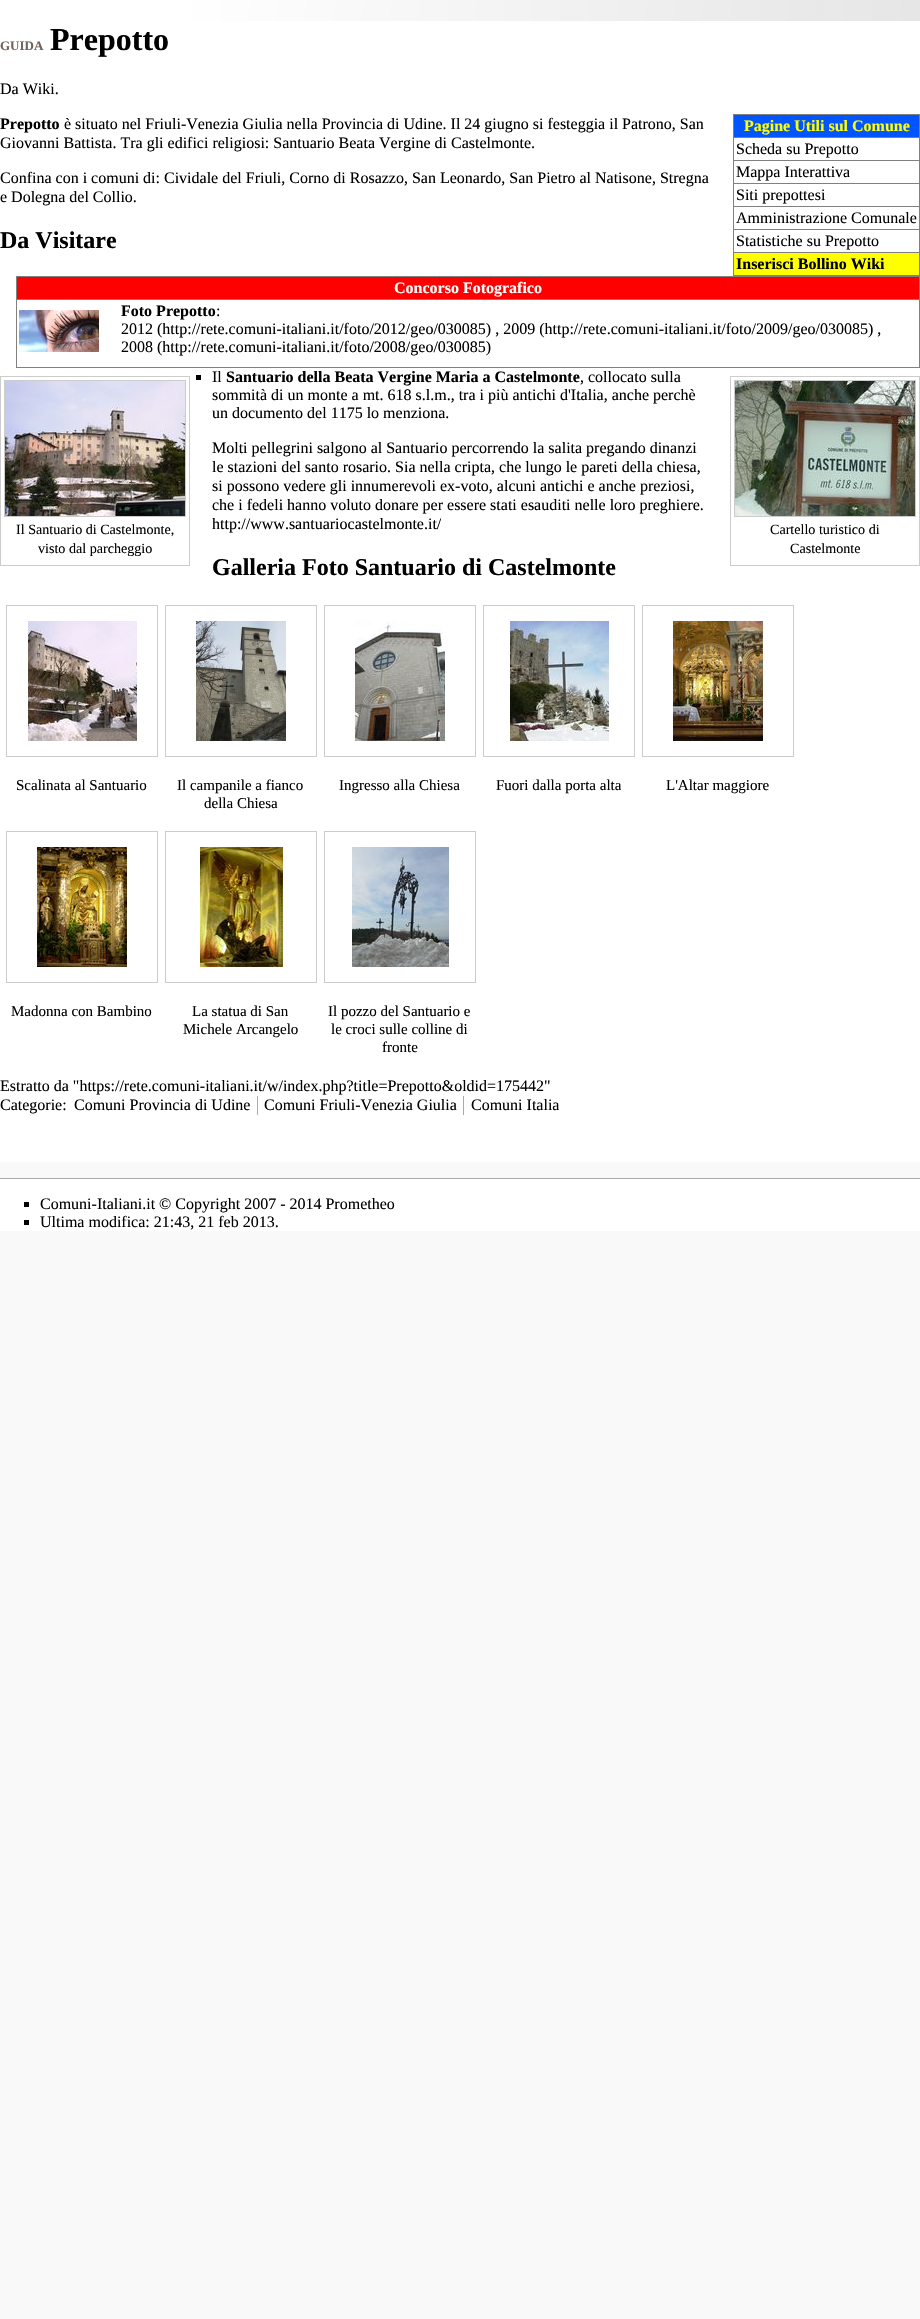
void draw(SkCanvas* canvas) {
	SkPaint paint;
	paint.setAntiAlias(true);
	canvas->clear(0xfff9f9f9);
	canvas->drawImageRect(SkImages::DeferredFromEncodedData(SkData::MakeFromFileName("img1.png")), SkRect::MakeXYWH(0, 0, 920, 21), SkSamplingOptions());
	paint.setColor(0xffffffff);
	canvas->drawRect(SkRect::MakeXYWH(0, 21, 920, 1141), paint);
	SkFont f1(fontMgr->matchFamilyStyle("Liberation Serif", SkFontStyle::Bold()), 13);
	f1.setSubpixel(true);
	paint.setColor(0xff71625b);
	canvas->drawString("GUIDA", 0, 50, f1, paint);
	SkFont f2(fontMgr->matchFamilyStyle("Liberation Serif", SkFontStyle::Bold()), 32);
	f2.setSubpixel(true);
	paint.setColor(0xff000000);
	canvas->drawString("Prepotto", 50, 50, f2, paint);
	SkFont f3(fontMgr->matchFamilyStyle("Liberation Serif", SkFontStyle::Normal()), 16);
	f3.setSubpixel(true);
	canvas->drawString("Da Wiki.", 0, 94, f3, paint);
	SkFont f4(fontMgr->matchFamilyStyle("Liberation Serif", SkFontStyle::Bold()), 16);
	f4.setSubpixel(true);
	canvas->drawString("Prepotto", 0, 129, f4, paint);
	canvas->drawString("è situato nel Friuli-Venezia Giulia nella Provincia di Udine. Il 24 giugno si festeggia il Patrono, San", 64, 129, f3, paint);
	canvas->drawString("Giovanni Battista. Tra gli edifici religiosi: Santuario Beata Vergine di Castelmonte.", 0, 148, f3, paint);
	paint.setColor(0xff808080);
	canvas->drawRect(SkRect::MakeXYWH(733, 114, 187, 1), paint);
	canvas->drawRect(SkRect::MakeXYWH(919, 114, 1, 162), paint);
	canvas->drawRect(SkRect::MakeXYWH(733, 275, 187, 1), paint);
	canvas->drawRect(SkRect::MakeXYWH(733, 114, 1, 162), paint);
	paint.setColor(0xff0055ff);
	canvas->drawRect(SkRect::MakeXYWH(734, 115, 185, 22), paint);
	paint.setColor(0xffffff00);
	canvas->drawString("Pagine Utili sul Comune", 744, 131, f4, paint);
	paint.setColor(0xff808080);
	canvas->drawRect(SkRect::MakeXYWH(733, 137, 187, 1), paint);
	paint.setColor(0xff000000);
	canvas->drawString("Scheda su Prepotto", 736, 154, f3, paint);
	paint.setColor(0xff808080);
	canvas->drawRect(SkRect::MakeXYWH(733, 160, 187, 1), paint);
	paint.setColor(0xff000000);
	canvas->drawString("Mappa Interattiva", 736, 177, f3, paint);
	paint.setColor(0xff808080);
	canvas->drawRect(SkRect::MakeXYWH(733, 183, 187, 1), paint);
	paint.setColor(0xff000000);
	canvas->drawString("Siti prepottesi", 736, 200, f3, paint);
	paint.setColor(0xff808080);
	canvas->drawRect(SkRect::MakeXYWH(733, 206, 187, 1), paint);
	paint.setColor(0xff000000);
	canvas->drawString("Amministrazione Comunale", 736, 223, f3, paint);
	paint.setColor(0xff808080);
	canvas->drawRect(SkRect::MakeXYWH(733, 229, 187, 1), paint);
	paint.setColor(0xff000000);
	canvas->drawString("Statistiche su Prepotto", 736, 246, f3, paint);
	paint.setColor(0xffffff00);
	canvas->drawRect(SkRect::MakeXYWH(734, 253, 185, 22), paint);
	paint.setColor(0xff808080);
	canvas->drawRect(SkRect::MakeXYWH(733, 252, 187, 1), paint);
	paint.setColor(0xff000000);
	canvas->drawString("Inserisci Bollino Wiki", 736, 269, f4, paint);
	canvas->drawString("Confina con i comuni di: Cividale del Friuli, Corno di Rosazzo, San Leonardo, San Pietro al Natisone, Stregna", 0, 183, f3, paint);
	canvas->drawString("e Dolegna del Collio.", 0, 202, f3, paint);
	SkFont f5(fontMgr->matchFamilyStyle("Liberation Serif", SkFontStyle::Bold()), 24);
	f5.setSubpixel(true);
	canvas->drawString("Da Visitare", 0, 248, f5, paint);
	paint.setColor(0xff808080);
	canvas->drawRect(SkRect::MakeXYWH(16, 276, 904, 1), paint);
	canvas->drawRect(SkRect::MakeXYWH(919, 276, 1, 92), paint);
	canvas->drawRect(SkRect::MakeXYWH(16, 367, 904, 1), paint);
	canvas->drawRect(SkRect::MakeXYWH(16, 276, 1, 92), paint);
	paint.setColor(0xffff0000);
	canvas->drawRect(SkRect::MakeXYWH(17, 277, 902, 22), paint);
	paint.setColor(0xffffffff);
	canvas->drawString("Concorso Fotografico", 394, 293, f4, paint);
	paint.setColor(0xff808080);
	canvas->drawRect(SkRect::MakeXYWH(16, 299, 904, 1), paint);
	canvas->drawImageRect(SkImages::DeferredFromEncodedData(SkData::MakeFromFileName("img2.png")), SkRect::MakeXYWH(19, 310, 80, 42), SkSamplingOptions());
	paint.setColor(0xff000000);
	canvas->drawString("Foto Prepotto", 121, 316, f4, paint);
	canvas->drawString(":", 216, 316, f3, paint);
	canvas->drawString("2012 (http://rete.comuni-italiani.it/foto/2012/geo/030085) , 2009 (http://rete.comuni-italiani.it/foto/2009/geo/030085) ,", 121, 334, f3, paint);
	canvas->drawString("2008 (http://rete.comuni-italiani.it/foto/2008/geo/030085)", 121, 352, f3, paint);
	canvas->drawRect(SkRect::MakeXYWH(196, 375, 5, 5), paint);
	canvas->drawString("Il", 212, 382, f3, paint);
	canvas->drawString("Santuario della Beata Vergine Maria a Castelmonte", 226, 382, f4, paint);
	canvas->drawString(", collocato sulla", 580, 382, f3, paint);
	canvas->drawString("sommità di un monte a mt. 618 s.l.m., tra i più antichi d'Italia, anche perchè", 212, 400, f3, paint);
	canvas->drawString("un documento del 1175 lo menziona.", 212, 418, f3, paint);
	canvas->drawString("Molti pellegrini salgono al Santuario percorrendo la salita pregando dinanzi", 212, 453, f3, paint);
	canvas->drawString("le stazioni del santo rosario. Sia nella cripta, che lungo le pareti della chiesa,", 212, 472, f3, paint);
	canvas->drawString("si possono vedere gli innumerevoli ex-voto, alcuni antichi e anche preziosi,", 212, 491, f3, paint);
	canvas->drawString("che i fedeli hanno voluto donare per essere stati esauditi nelle loro preghiere.", 212, 510, f3, paint);
	canvas->drawString("http://www.santuariocastelmonte.it/", 212, 529, f3, paint);
	paint.setStroke(true);
	paint.setStrokeWidth(1);
	paint.setColor(0xffcccccc);
	canvas->drawRect(SkRect::MakeXYWH(0.5, 376.5, 189, 189), paint);
	canvas->drawRect(SkRect::MakeXYWH(4.5, 380.5, 181, 136), paint);
	canvas->drawImageRect(SkImages::DeferredFromEncodedData(SkData::MakeFromFileName("img3.png")), SkRect::MakeXYWH(5, 381, 180, 135), SkSamplingOptions());
	SkFont f6(fontMgr->matchFamilyStyle("Liberation Serif", SkFontStyle::Normal()), 14.1);
	f6.setSubpixel(true);
	paint.setStroke(false);
	paint.setColor(0xff000000);
	canvas->drawString("Il Santuario di Castelmonte,", 16, 534, f6, paint);
	canvas->drawString("visto dal parcheggio", 38, 553, f6, paint);
	paint.setStroke(true);
	paint.setColor(0xffcccccc);
	canvas->drawRect(SkRect::MakeXYWH(730.5, 376.5, 189, 189), paint);
	canvas->drawRect(SkRect::MakeXYWH(734.5, 380.5, 181, 136), paint);
	canvas->drawImageRect(SkImages::DeferredFromEncodedData(SkData::MakeFromFileName("img4.png")), SkRect::MakeXYWH(735, 381, 180, 135), SkSamplingOptions());
	paint.setStroke(false);
	paint.setColor(0xff000000);
	canvas->drawString("Cartello turistico di", 770, 534, f6, paint);
	canvas->drawString("Castelmonte", 790, 553, f6, paint);
	canvas->drawString("Galleria Foto Santuario di Castelmonte", 212, 575, f5, paint);
	paint.setStroke(true);
	paint.setColor(0xffcccccc);
	canvas->drawRect(SkRect::MakeXYWH(6.5, 605.5, 151, 151), paint);
	canvas->drawImageRect(SkImages::DeferredFromEncodedData(SkData::MakeFromFileName("img5.png")), SkRect::MakeXYWH(28, 621, 109, 120), SkSamplingOptions());
	SkFont f7(fontMgr->matchFamilyStyle("Liberation Serif", SkFontStyle::Normal()), 15);
	f7.setSubpixel(true);
	paint.setStroke(false);
	paint.setColor(0xff000000);
	canvas->drawString("Scalinata al Santuario", 16, 790, f7, paint);
	paint.setStroke(true);
	paint.setColor(0xffcccccc);
	canvas->drawRect(SkRect::MakeXYWH(165.5, 605.5, 151, 151), paint);
	canvas->drawImageRect(SkImages::DeferredFromEncodedData(SkData::MakeFromFileName("img6.png")), SkRect::MakeXYWH(196, 621, 90, 120), SkSamplingOptions());
	paint.setStroke(false);
	paint.setColor(0xff000000);
	canvas->drawString("Il campanile a fianco", 177, 790, f7, paint);
	canvas->drawString("della Chiesa", 204, 808, f7, paint);
	paint.setStroke(true);
	paint.setColor(0xffcccccc);
	canvas->drawRect(SkRect::MakeXYWH(324.5, 605.5, 151, 151), paint);
	canvas->drawImageRect(SkImages::DeferredFromEncodedData(SkData::MakeFromFileName("img7.png")), SkRect::MakeXYWH(355, 621, 90, 120), SkSamplingOptions());
	paint.setStroke(false);
	paint.setColor(0xff000000);
	canvas->drawString("Ingresso alla Chiesa", 339, 790, f7, paint);
	paint.setStroke(true);
	paint.setColor(0xffcccccc);
	canvas->drawRect(SkRect::MakeXYWH(483.5, 605.5, 151, 151), paint);
	canvas->drawImageRect(SkImages::DeferredFromEncodedData(SkData::MakeFromFileName("img8.png")), SkRect::MakeXYWH(510, 621, 99, 120), SkSamplingOptions());
	paint.setStroke(false);
	paint.setColor(0xff000000);
	canvas->drawString("Fuori dalla porta alta", 496, 790, f7, paint);
	paint.setStroke(true);
	paint.setColor(0xffcccccc);
	canvas->drawRect(SkRect::MakeXYWH(642.5, 605.5, 151, 151), paint);
	canvas->drawImageRect(SkImages::DeferredFromEncodedData(SkData::MakeFromFileName("img9.png")), SkRect::MakeXYWH(673, 621, 90, 120), SkSamplingOptions());
	paint.setStroke(false);
	paint.setColor(0xff000000);
	canvas->drawString("L'Altar maggiore", 666, 790, f7, paint);
	paint.setStroke(true);
	paint.setColor(0xffcccccc);
	canvas->drawRect(SkRect::MakeXYWH(6.5, 831.5, 151, 151), paint);
	canvas->drawImageRect(SkImages::DeferredFromEncodedData(SkData::MakeFromFileName("img10.png")), SkRect::MakeXYWH(37, 847, 90, 120), SkSamplingOptions());
	paint.setStroke(false);
	paint.setColor(0xff000000);
	canvas->drawString("Madonna con Bambino", 11, 1016, f7, paint);
	paint.setStroke(true);
	paint.setColor(0xffcccccc);
	canvas->drawRect(SkRect::MakeXYWH(165.5, 831.5, 151, 151), paint);
	canvas->drawImageRect(SkImages::DeferredFromEncodedData(SkData::MakeFromFileName("img11.png")), SkRect::MakeXYWH(200, 847, 83, 120), SkSamplingOptions());
	paint.setStroke(false);
	paint.setColor(0xff000000);
	canvas->drawString("La statua di San", 192, 1016, f7, paint);
	canvas->drawString("Michele Arcangelo", 183, 1034, f7, paint);
	paint.setStroke(true);
	paint.setColor(0xffcccccc);
	canvas->drawRect(SkRect::MakeXYWH(324.5, 831.5, 151, 151), paint);
	canvas->drawImageRect(SkImages::DeferredFromEncodedData(SkData::MakeFromFileName("img12.png")), SkRect::MakeXYWH(352, 847, 97, 120), SkSamplingOptions());
	paint.setStroke(false);
	paint.setColor(0xff000000);
	canvas->drawString("Il pozzo del Santuario e", 328, 1016, f7, paint);
	canvas->drawString("le croci sulle colline di", 331, 1034, f7, paint);
	canvas->drawString("fronte", 382, 1052, f7, paint);
	canvas->drawString("Estratto da \"https://rete.comuni-italiani.it/w/index.php?title=Prepotto&oldid=175442\"", 0, 1091, f3, paint);
	canvas->drawString("Categorie:", 0, 1110, f3, paint);
	canvas->drawString("Comuni Provincia di Udine", 74, 1110, f3, paint);
	paint.setColor(0xffaaaaaa);
	canvas->drawRect(SkRect::MakeXYWH(257, 1096, 1, 19), paint);
	paint.setColor(0xff000000);
	canvas->drawString("Comuni Friuli-Venezia Giulia", 264, 1110, f3, paint);
	paint.setColor(0xffaaaaaa);
	canvas->drawRect(SkRect::MakeXYWH(463, 1096, 1, 19), paint);
	paint.setColor(0xff000000);
	canvas->drawString("Comuni Italia", 471, 1110, f3, paint);
	paint.setColor(0xffffffff);
	canvas->drawRect(SkRect::MakeXYWH(0, 1179, 920, 52), paint);
	paint.setColor(0xffaaaaaa);
	canvas->drawRect(SkRect::MakeXYWH(0, 1178, 920, 1), paint);
	paint.setColor(0xff000000);
	canvas->drawRect(SkRect::MakeXYWH(24, 1202, 5, 5), paint);
	canvas->drawString("Comuni-Italiani.it © Copyright 2007 - 2014 Prometheo", 40, 1209, f3, paint);
	canvas->drawRect(SkRect::MakeXYWH(24, 1220, 5, 5), paint);
	canvas->drawString("Ultima modifica: 21:43, 21 feb 2013.", 40, 1227, f3, paint);
}
